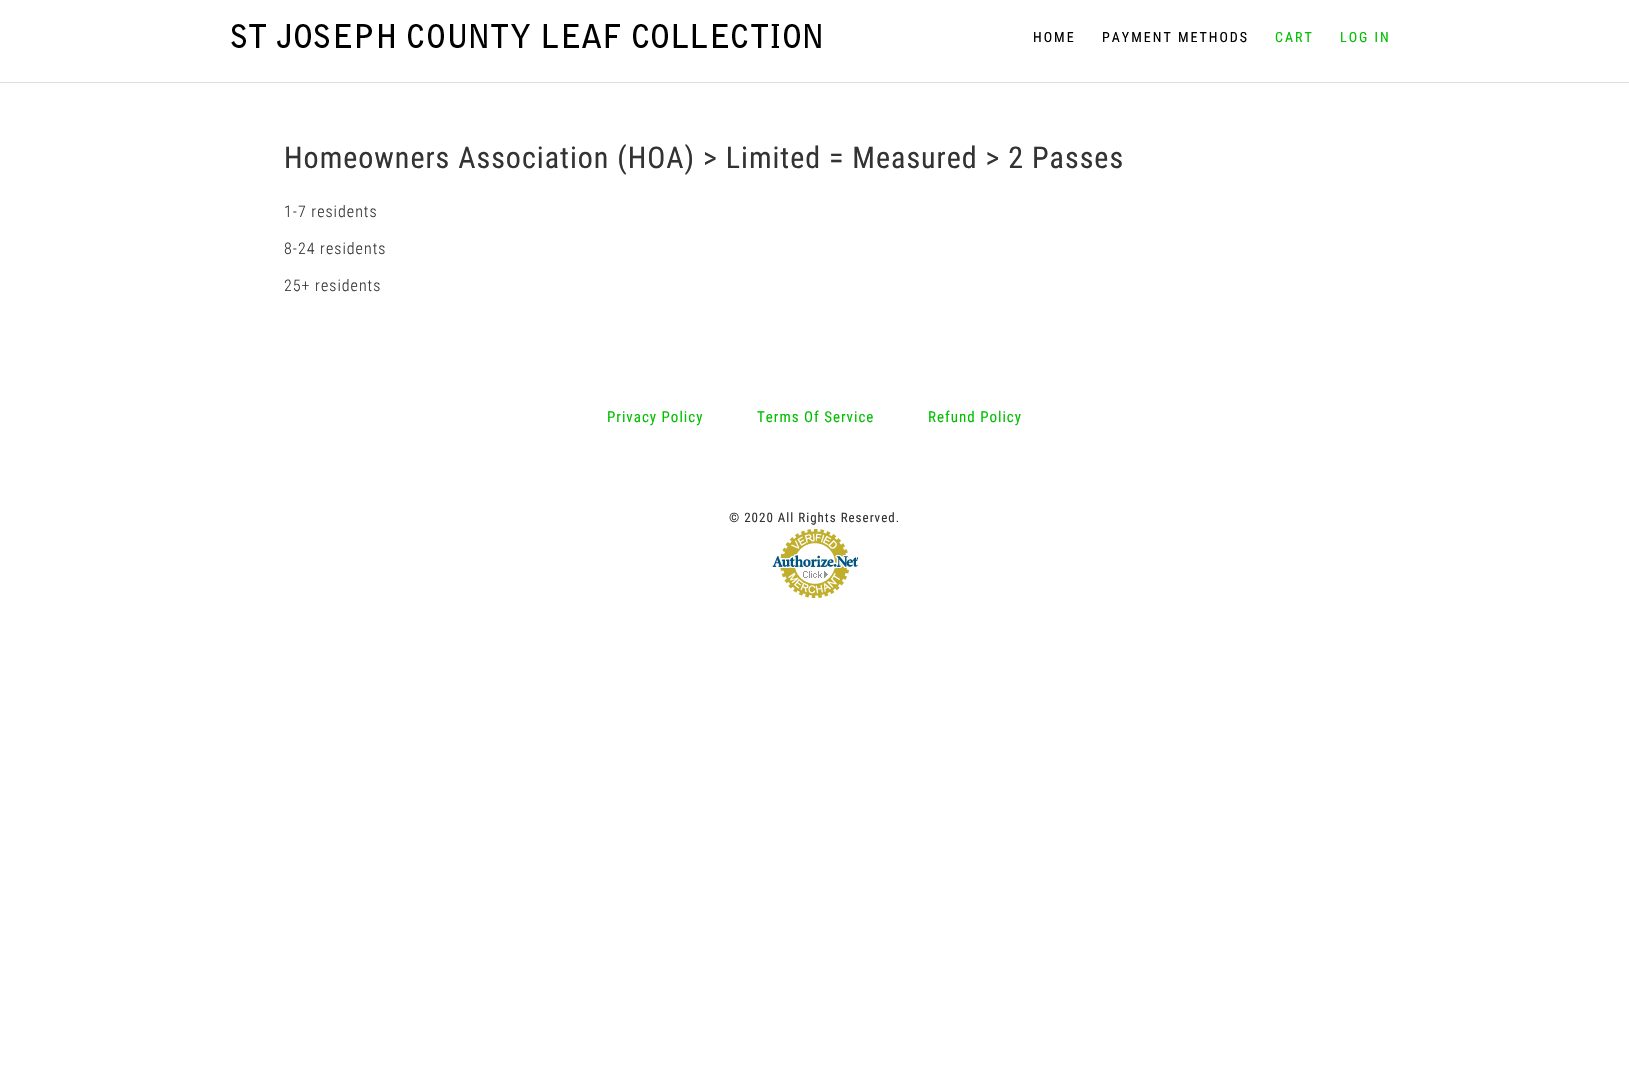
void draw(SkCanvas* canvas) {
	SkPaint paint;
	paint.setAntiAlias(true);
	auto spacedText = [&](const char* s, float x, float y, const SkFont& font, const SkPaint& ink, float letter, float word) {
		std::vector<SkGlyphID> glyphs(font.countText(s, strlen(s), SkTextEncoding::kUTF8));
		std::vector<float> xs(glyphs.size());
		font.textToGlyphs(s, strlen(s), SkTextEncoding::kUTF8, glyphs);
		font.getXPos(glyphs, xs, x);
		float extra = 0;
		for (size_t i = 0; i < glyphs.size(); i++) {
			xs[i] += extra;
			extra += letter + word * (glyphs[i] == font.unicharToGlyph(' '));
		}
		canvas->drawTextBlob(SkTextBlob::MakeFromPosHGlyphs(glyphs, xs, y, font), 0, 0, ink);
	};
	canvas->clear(0xffffffff);
	paint.setColor(0xffdddddd);
	canvas->drawRect(SkRect::MakeXYWH(0, 82, 1629, 1), paint);
	canvas->drawImageRect(SkImages::DeferredFromEncodedData(SkData::MakeFromFileName("img1.png")), SkRect::MakeXYWH(231, 24, 590, 24), SkSamplingOptions());
	SkFont f1(fontMgr->matchFamilyStyle("Roboto Condensed", SkFontStyle::Normal()), 14);
	f1.setSubpixel(true);
	paint.setColor(0xff000000);
	spacedText("HOME", 1033, 42, f1, paint, 2, 0);
	spacedText("PAYMENT METHODS", 1102, 42, f1, paint, 2, 0);
	paint.setColor(0xff02bf02);
	spacedText("CART", 1275, 42, f1, paint, 2, 0);
	spacedText("LOG IN", 1340, 42, f1, paint, 2, 0);
	SkFont f2(fontMgr->matchFamilyStyle("Roboto Condensed", SkFontStyle::Normal()), 30);
	f2.setSubpixel(true);
	paint.setColor(0xff333333);
	spacedText("Homeowners Association (HOA) > Limited = Measured > 2 Passes", 284, 168, f2, paint, 1, 0);
	SkFont f3(fontMgr->matchFamilyStyle("Roboto Condensed", SkFontStyle(300, SkFontStyle::kNormal_Width, SkFontStyle::kUpright_Slant)), 16);
	f3.setSubpixel(true);
	spacedText("1-7 residents", 284, 217, f3, paint, 1, 0);
	spacedText("8-24 residents", 284, 254, f3, paint, 1, 0);
	spacedText("25+ residents", 284, 291, f3, paint, 1, 0);
	SkFont f4(fontMgr->matchFamilyStyle("Roboto Condensed", SkFontStyle::Normal()), 15);
	f4.setSubpixel(true);
	paint.setColor(0xff02bf02);
	spacedText("Privacy Policy", 607, 422, f4, paint, 1, 0);
	spacedText("Terms Of Service", 757, 422, f4, paint, 1, 0);
	spacedText("Refund Policy", 928, 422, f4, paint, 1, 0);
	SkFont f5(fontMgr->matchFamilyStyle("Roboto Condensed", SkFontStyle::Normal()), 13);
	f5.setSubpixel(true);
	paint.setColor(0xff333333);
	spacedText("© 2020 All Rights Reserved.", 729, 522, f5, paint, 1, 0);
	canvas->drawImageRect(SkImages::DeferredFromEncodedData(SkData::MakeFromFileName("img2.png")), SkRect::MakeXYWH(772, 529, 86, 69), SkSamplingOptions());
}
